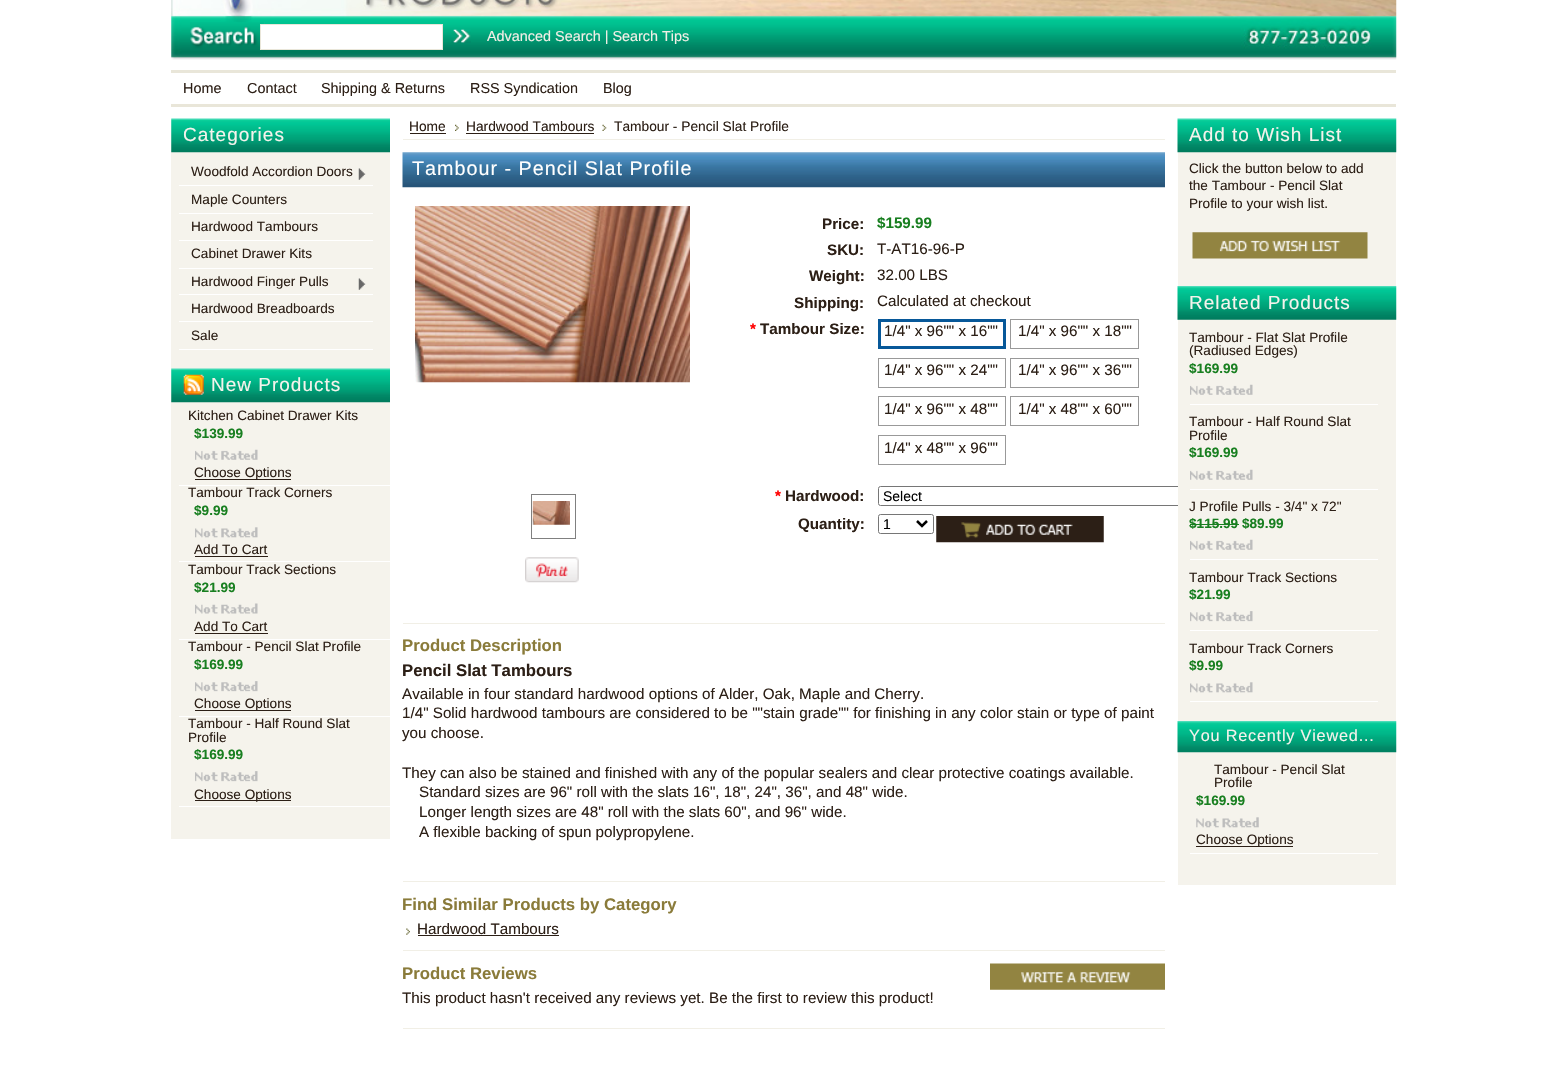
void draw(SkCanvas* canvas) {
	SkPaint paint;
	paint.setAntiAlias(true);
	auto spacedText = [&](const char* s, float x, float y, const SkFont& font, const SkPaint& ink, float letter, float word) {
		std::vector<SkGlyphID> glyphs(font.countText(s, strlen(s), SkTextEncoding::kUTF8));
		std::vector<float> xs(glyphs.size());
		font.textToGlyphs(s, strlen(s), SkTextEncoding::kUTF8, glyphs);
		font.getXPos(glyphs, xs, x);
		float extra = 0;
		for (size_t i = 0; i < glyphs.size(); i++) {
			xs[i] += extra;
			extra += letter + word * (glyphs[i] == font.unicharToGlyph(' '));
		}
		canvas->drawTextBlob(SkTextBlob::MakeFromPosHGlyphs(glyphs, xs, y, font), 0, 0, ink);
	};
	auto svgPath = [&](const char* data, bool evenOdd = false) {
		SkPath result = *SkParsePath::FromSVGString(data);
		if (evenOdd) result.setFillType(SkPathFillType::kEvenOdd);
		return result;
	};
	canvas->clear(0xffffffff);
	canvas->drawImageRect(SkImages::DeferredFromEncodedData(SkData::MakeFromFileName("img1.png")), SkRect::MakeXYWH(171, 0, 1226, 60), SkSamplingOptions());
	canvas->drawImageRect(SkImages::DeferredFromEncodedData(SkData::MakeFromFileName("img2.png")), SkRect::MakeXYWH(190, 22, 75, 27), SkSamplingOptions());
	paint.setColor(0xffffffff);
	canvas->drawRect(SkRect::MakeXYWH(260.5, 24.5, 182, 25), paint);
	paint.setStroke(true);
	paint.setStrokeWidth(1);
	paint.setColor(0xffe9e6d9);
	canvas->drawRect(SkRect::MakeXYWH(260.5, 24.5, 182, 25), paint);
	canvas->drawImageRect(SkImages::DeferredFromEncodedData(SkData::MakeFromFileName("img3.png")), SkRect::MakeXYWH(451, 29, 20, 14), SkSamplingOptions());
	SkFont f1(fontMgr->matchFamilyStyle("Liberation Sans", SkFontStyle::Normal()), 14.4);
	f1.setSubpixel(true);
	paint.setStroke(false);
	paint.setColor(0xfff1efe6);
	canvas->drawString("Advanced Search | Search Tips", 487, 41, f1, paint);
	paint.setColor(0xffe9e6d9);
	canvas->drawRect(SkRect::MakeXYWH(171, 70, 1225, 3), paint);
	canvas->drawRect(SkRect::MakeXYWH(171, 104, 1225, 3), paint);
	paint.setColor(0xff2c1f16);
	canvas->drawString("Home", 183, 93, f1, paint);
	canvas->drawString("Contact", 247, 93, f1, paint);
	canvas->drawString("Shipping & Returns", 321, 93, f1, paint);
	canvas->drawString("RSS Syndication", 470, 93, f1, paint);
	canvas->drawString("Blog", 603, 93, f1, paint);
	paint.setColor(0xfff5f3ec);
	canvas->drawRect(SkRect::MakeXYWH(171, 119, 219, 720), paint);
	canvas->drawImageRect(SkImages::DeferredFromEncodedData(SkData::MakeFromFileName("img4.png")), SkRect::MakeXYWH(171, 118, 219, 35), SkSamplingOptions());
	SkFont f2(fontMgr->matchFamilyStyle("Liberation Sans", SkFontStyle::Normal()), 19);
	f2.setSubpixel(true);
	spacedText("Categories", 183, 141, f2, paint, 1, 0);
	paint.setColor(0xffffffff);
	canvas->drawRect(SkRect::MakeXYWH(179, 185, 194, 1), paint);
	SkFont f3(fontMgr->matchFamilyStyle("Liberation Sans", SkFontStyle::Normal()), 13.6);
	f3.setSubpixel(true);
	paint.setColor(0xff2c1f16);
	canvas->drawString("Woodfold Accordion Doors", 191, 176, f3, paint);
	canvas->drawImageRect(SkImages::DeferredFromEncodedData(SkData::MakeFromFileName("img5.png")), SkRect::MakeXYWH(358, 168, 8, 12), SkSamplingOptions());
	paint.setColor(0xffffffff);
	canvas->drawRect(SkRect::MakeXYWH(179, 213, 194, 1), paint);
	paint.setColor(0xff2c1f16);
	canvas->drawString("Maple Counters", 191, 204, f3, paint);
	paint.setColor(0xffffffff);
	canvas->drawRect(SkRect::MakeXYWH(179, 240, 194, 1), paint);
	paint.setColor(0xff2c1f16);
	canvas->drawString("Hardwood Tambours", 191, 231, f3, paint);
	paint.setColor(0xffffffff);
	canvas->drawRect(SkRect::MakeXYWH(179, 268, 194, 1), paint);
	paint.setColor(0xff2c1f16);
	canvas->drawString("Cabinet Drawer Kits", 191, 258, f3, paint);
	paint.setColor(0xffffffff);
	canvas->drawRect(SkRect::MakeXYWH(179, 294, 194, 1), paint);
	paint.setColor(0xff2c1f16);
	canvas->drawString("Hardwood Finger Pulls", 191, 286, f3, paint);
	canvas->drawImageRect(SkImages::DeferredFromEncodedData(SkData::MakeFromFileName("img5.png")), SkRect::MakeXYWH(358, 278, 8, 12), SkSamplingOptions());
	paint.setColor(0xffffffff);
	canvas->drawRect(SkRect::MakeXYWH(179, 321, 194, 1), paint);
	paint.setColor(0xff2c1f16);
	canvas->drawString("Hardwood Breadboards", 191, 313, f3, paint);
	paint.setColor(0xffffffff);
	canvas->drawRect(SkRect::MakeXYWH(179, 349, 194, 1), paint);
	paint.setColor(0xff2c1f16);
	canvas->drawString("Sale", 191, 340, f3, paint);
	canvas->drawImageRect(SkImages::DeferredFromEncodedData(SkData::MakeFromFileName("img6.png")), SkRect::MakeXYWH(171, 368, 219, 35), SkSamplingOptions());
	canvas->drawImageRect(SkImages::DeferredFromEncodedData(SkData::MakeFromFileName("img7.png")), SkRect::MakeXYWH(183, 374, 21, 21), SkSamplingOptions());
	paint.setColor(0xfff5f3ec);
	spacedText("New Products", 211, 391, f2, paint, 1, 0);
	paint.setColor(0xffffffff);
	canvas->drawRect(SkRect::MakeXYWH(179, 485, 211, 1), paint);
	paint.setColor(0xff2c1f16);
	canvas->drawString("Kitchen Cabinet Drawer Kits", 188, 420, f3, paint);
	SkFont f4(fontMgr->matchFamilyStyle("Liberation Sans", SkFontStyle::Bold()), 13.6);
	f4.setSubpixel(true);
	paint.setColor(0xff187f20);
	canvas->drawString("$139.99", 194, 438, f4, paint);
	canvas->drawImageRect(SkImages::DeferredFromEncodedData(SkData::MakeFromFileName("img8.png")), SkRect::MakeXYWH(195, 449, 63, 11), SkSamplingOptions());
	paint.setColor(0xff2c1f16);
	canvas->drawRect(SkRect::MakeXYWH(195, 479, 96, 1), paint);
	canvas->drawString("Choose Options", 194, 477, f3, paint);
	paint.setColor(0xffffffff);
	canvas->drawRect(SkRect::MakeXYWH(179, 561, 211, 1), paint);
	paint.setColor(0xff2c1f16);
	canvas->drawString("Tambour Track Corners", 188, 497, f3, paint);
	paint.setColor(0xff187f20);
	canvas->drawString("$9.99", 194, 515, f4, paint);
	canvas->drawImageRect(SkImages::DeferredFromEncodedData(SkData::MakeFromFileName("img9.png")), SkRect::MakeXYWH(195, 527, 63, 11), SkSamplingOptions());
	paint.setColor(0xff2c1f16);
	canvas->drawString("Add To Cart", 194, 554, f3, paint);
	canvas->drawRect(SkRect::MakeXYWH(195, 556, 73, 1), paint);
	paint.setColor(0xffffffff);
	canvas->drawRect(SkRect::MakeXYWH(179, 639, 211, 1), paint);
	paint.setColor(0xff2c1f16);
	canvas->drawString("Tambour Track Sections", 188, 574, f3, paint);
	paint.setColor(0xff187f20);
	canvas->drawString("$21.99", 194, 592, f4, paint);
	canvas->drawImageRect(SkImages::DeferredFromEncodedData(SkData::MakeFromFileName("img10.png")), SkRect::MakeXYWH(195, 603, 63, 11), SkSamplingOptions());
	paint.setColor(0xff2c1f16);
	canvas->drawString("Add To Cart", 194, 631, f3, paint);
	canvas->drawRect(SkRect::MakeXYWH(195, 633, 73, 1), paint);
	paint.setColor(0xffffffff);
	canvas->drawRect(SkRect::MakeXYWH(179, 716, 211, 1), paint);
	paint.setColor(0xff2c1f16);
	canvas->drawString("Tambour - Pencil Slat Profile", 188, 651, f3, paint);
	paint.setColor(0xff187f20);
	canvas->drawString("$169.99", 194, 669, f4, paint);
	canvas->drawImageRect(SkImages::DeferredFromEncodedData(SkData::MakeFromFileName("img11.png")), SkRect::MakeXYWH(195, 681, 63, 11), SkSamplingOptions());
	paint.setColor(0xff2c1f16);
	canvas->drawRect(SkRect::MakeXYWH(195, 710, 96, 1), paint);
	canvas->drawString("Choose Options", 194, 708, f3, paint);
	paint.setColor(0xffffffff);
	canvas->drawRect(SkRect::MakeXYWH(179, 806, 211, 1), paint);
	paint.setColor(0xff2c1f16);
	canvas->drawString("Tambour - Half Round Slat", 188, 728, f3, paint);
	canvas->drawString("Profile", 188, 742, f3, paint);
	paint.setColor(0xff187f20);
	canvas->drawString("$169.99", 194, 759, f4, paint);
	canvas->drawImageRect(SkImages::DeferredFromEncodedData(SkData::MakeFromFileName("img11.png")), SkRect::MakeXYWH(195, 771, 63, 11), SkSamplingOptions());
	paint.setColor(0xff2c1f16);
	canvas->drawRect(SkRect::MakeXYWH(195, 800, 96, 1), paint);
	canvas->drawString("Choose Options", 194, 799, f3, paint);
	paint.setColor(0xfff1efe6);
	canvas->drawRect(SkRect::MakeXYWH(403, 139, 762, 1), paint);
	SkFont f5(fontMgr->matchFamilyStyle("Liberation Sans", SkFontStyle::Normal()), 13.75);
	f5.setSubpixel(true);
	paint.setColor(0xff2c1f16);
	canvas->drawString("Home", 409, 131, f5, paint);
	canvas->drawRect(SkRect::MakeXYWH(410, 133, 36, 1), paint);
	canvas->drawImageRect(SkImages::DeferredFromEncodedData(SkData::MakeFromFileName("img12.png")), SkRect::MakeXYWH(455, 124, 4, 7), SkSamplingOptions());
	canvas->drawString("Hardwood Tambours", 466, 131, f5, paint);
	canvas->drawRect(SkRect::MakeXYWH(466, 133, 128, 1), paint);
	canvas->drawImageRect(SkImages::DeferredFromEncodedData(SkData::MakeFromFileName("img13.png")), SkRect::MakeXYWH(602, 124, 5, 7), SkSamplingOptions());
	canvas->drawString("Tambour - Pencil Slat Profile", 614, 131, f5, paint);
	canvas->drawImageRect(SkImages::DeferredFromEncodedData(SkData::MakeFromFileName("img14.png")), SkRect::MakeXYWH(402, 152, 763, 36), SkSamplingOptions());
	SkFont f6(fontMgr->matchFamilyStyle("Liberation Sans", SkFontStyle::Normal()), 19.75);
	f6.setSubpixel(true);
	paint.setColor(0xffffffff);
	spacedText("Tambour - Pencil Slat Profile", 412, 175, f6, paint, 1, 0);
	canvas->drawImageRect(SkImages::DeferredFromEncodedData(SkData::MakeFromFileName("img15.png")), SkRect::MakeXYWH(415, 206, 275, 177), SkSamplingOptions());
	paint.setStroke(true);
	paint.setColor(0xff808080);
	canvas->drawRect(SkRect::MakeXYWH(531.5, 494.5, 44, 44), paint);
	canvas->drawImageRect(SkImages::DeferredFromEncodedData(SkData::MakeFromFileName("img16.png")), SkRect::MakeXYWH(532, 501, 38, 24), SkSamplingOptions());
	canvas->drawImageRect(SkImages::DeferredFromEncodedData(SkData::MakeFromFileName("img17.png")), SkRect::MakeXYWH(525, 557, 54, 26), SkSamplingOptions());
	SkFont f7(fontMgr->matchFamilyStyle("Liberation Sans", SkFontStyle::Bold()), 15.2);
	f7.setSubpixel(true);
	paint.setStroke(false);
	paint.setColor(0xff2c1f16);
	canvas->drawString("Price:", 822, 229, f7, paint);
	paint.setColor(0xff187f20);
	canvas->drawString("$159.99", 877, 228, f7, paint);
	paint.setColor(0xff2c1f16);
	canvas->drawString("SKU:", 827, 255, f7, paint);
	SkFont f8(fontMgr->matchFamilyStyle("Liberation Sans", SkFontStyle::Normal()), 15.2);
	f8.setSubpixel(true);
	canvas->drawString("T-AT16-96-P", 877, 254, f8, paint);
	canvas->drawString("Weight:", 809, 281, f7, paint);
	canvas->drawString("32.00 LBS", 877, 280, f8, paint);
	canvas->drawString("Shipping:", 794, 308, f7, paint);
	canvas->drawString("Calculated at checkout", 877, 306, f8, paint);
	paint.setColor(0xffff0000);
	canvas->drawString("*", 750, 334, f7, paint);
	paint.setColor(0xff2c1f16);
	canvas->drawString("Tambour Size:", 760, 334, f7, paint);
	paint.setStroke(true);
	paint.setStrokeWidth(3);
	paint.setColor(0xff075899);
	canvas->drawRect(SkRect::MakeXYWH(879.5, 320.5, 125, 27), paint);
	paint.setStroke(false);
	paint.setColor(0xff2c1f16);
	canvas->drawString("1/4\" x 96\"\" x 16\"\"", 884, 336, f8, paint);
	paint.setStroke(true);
	paint.setStrokeWidth(1);
	paint.setColor(0xff999999);
	canvas->drawRect(SkRect::MakeXYWH(1010.5, 319.5, 128, 29), paint);
	paint.setStroke(false);
	paint.setColor(0xff2c1f16);
	canvas->drawString("1/4\" x 96\"\" x 18\"\"", 1018, 336, f8, paint);
	paint.setStroke(true);
	paint.setColor(0xff999999);
	canvas->drawRect(SkRect::MakeXYWH(878.5, 358.5, 127, 29), paint);
	paint.setStroke(false);
	paint.setColor(0xff2c1f16);
	canvas->drawString("1/4\" x 96\"\" x 24\"\"", 884, 375, f8, paint);
	paint.setStroke(true);
	paint.setColor(0xff999999);
	canvas->drawRect(SkRect::MakeXYWH(1010.5, 358.5, 128, 29), paint);
	paint.setStroke(false);
	paint.setColor(0xff2c1f16);
	canvas->drawString("1/4\" x 96\"\" x 36\"\"", 1018, 375, f8, paint);
	paint.setStroke(true);
	paint.setColor(0xff999999);
	canvas->drawRect(SkRect::MakeXYWH(878.5, 396.5, 127, 29), paint);
	paint.setStroke(false);
	paint.setColor(0xff2c1f16);
	canvas->drawString("1/4\" x 96\"\" x 48\"\"", 884, 414, f8, paint);
	paint.setStroke(true);
	paint.setColor(0xff999999);
	canvas->drawRect(SkRect::MakeXYWH(1010.5, 396.5, 128, 29), paint);
	paint.setStroke(false);
	paint.setColor(0xff2c1f16);
	canvas->drawString("1/4\" x 48\"\" x 60\"\"", 1018, 414, f8, paint);
	paint.setStroke(true);
	paint.setColor(0xff999999);
	canvas->drawRect(SkRect::MakeXYWH(878.5, 435.5, 127, 29), paint);
	paint.setStroke(false);
	paint.setColor(0xff2c1f16);
	canvas->drawString("1/4\" x 48\"\" x 96\"\"", 884, 453, f8, paint);
	paint.setColor(0xffff0000);
	canvas->drawString("*", 775, 501, f7, paint);
	paint.setColor(0xff2c1f16);
	canvas->drawString("Hardwood:", 785, 501, f7, paint);
	paint.setStroke(true);
	paint.setColor(0xff767676);
	canvas->drawRoundRect(SkRect::MakeXYWH(878.5, 486.5, 371, 19), 2, 2, paint);
	SkFont f9(fontMgr->matchFamilyStyle("Liberation Sans", SkFontStyle::Normal()), 14);
	f9.setSubpixel(true);
	paint.setStroke(false);
	paint.setColor(0xff000000);
	canvas->drawString("Select", 883, 501, f9, paint);
	paint.setColor(0xff2c1f16);
	canvas->drawString("Quantity:", 798, 529, f7, paint);
	paint.setStroke(true);
	paint.setColor(0xff767676);
	canvas->drawRoundRect(SkRect::MakeXYWH(878.5, 514.5, 55, 19), 2, 2, paint);
	paint.setStrokeWidth(2.5);
	paint.setColor(0xff000000);
	canvas->drawPath(svgPath("M917 521L922 526L927 521"), paint);
	paint.setStroke(false);
	canvas->drawString("1", 883, 529, f9, paint);
	canvas->drawImageRect(SkImages::DeferredFromEncodedData(SkData::MakeFromFileName("img18.png")), SkRect::MakeXYWH(936, 516, 168, 27), SkSamplingOptions());
	paint.setColor(0xfff1efe6);
	canvas->drawRect(SkRect::MakeXYWH(403, 623, 762, 1), paint);
	SkFont f10(fontMgr->matchFamilyStyle("Liberation Sans", SkFontStyle::Bold()), 16.75);
	f10.setSubpixel(true);
	paint.setColor(0xff8a7b3a);
	canvas->drawString("Product Description", 402, 651, f10, paint);
	paint.setColor(0xff2c1f16);
	canvas->drawString("Pencil Slat Tambours", 402, 676, f10, paint);
	canvas->drawString("Available in four standard hardwood options of Alder, Oak, Maple and Cherry.", 402, 699, f8, paint);
	canvas->drawString("1/4\" Solid hardwood tambours are considered to be \"\"stain grade\"\" for finishing in any color stain or type of paint", 402, 718, f8, paint);
	canvas->drawString("you choose.", 402, 738, f8, paint);
	canvas->drawString("They can also be stained and finished with any of the popular sealers and clear protective coatings available.", 402, 778, f8, paint);
	canvas->drawString("Standard sizes are 96\" roll with the slats 16\", 18\", 24\", 36\", and 48\" wide.", 419, 797, f8, paint);
	canvas->drawString("Longer length sizes are 48\" roll with the slats 60\", and 96\" wide.", 419, 817, f8, paint);
	canvas->drawString("A flexible backing of spun polypropylene.", 419, 837, f8, paint);
	paint.setColor(0xfff1efe6);
	canvas->drawRect(SkRect::MakeXYWH(403, 881, 762, 1), paint);
	paint.setColor(0xff8a7b3a);
	canvas->drawString("Find Similar Products by Category", 402, 910, f10, paint);
	canvas->drawImageRect(SkImages::DeferredFromEncodedData(SkData::MakeFromFileName("img19.png")), SkRect::MakeXYWH(406, 928, 4, 7), SkSamplingOptions());
	paint.setColor(0xff2c1f16);
	canvas->drawString("Hardwood Tambours", 417, 934, f8, paint);
	canvas->drawRect(SkRect::MakeXYWH(418, 935, 141, 1), paint);
	paint.setColor(0xfff1efe6);
	canvas->drawRect(SkRect::MakeXYWH(403, 950, 762, 1), paint);
	paint.setColor(0xff8a7b3a);
	canvas->drawString("Product Reviews", 402, 979, f10, paint);
	canvas->drawImageRect(SkImages::DeferredFromEncodedData(SkData::MakeFromFileName("img20.png")), SkRect::MakeXYWH(990, 963, 175, 27), SkSamplingOptions());
	paint.setColor(0xff2c1f16);
	canvas->drawString("This product hasn't received any reviews yet. Be the first to review this product!", 402, 1003, f8, paint);
	paint.setColor(0xfff1efe6);
	canvas->drawRect(SkRect::MakeXYWH(403, 1028, 762, 1), paint);
	paint.setColor(0xfff5f3ec);
	canvas->drawRect(SkRect::MakeXYWH(1178, 152, 218, 733), paint);
	canvas->drawImageRect(SkImages::DeferredFromEncodedData(SkData::MakeFromFileName("img21.png")), SkRect::MakeXYWH(1177, 118, 220, 35), SkSamplingOptions());
	spacedText("Add to Wish List", 1189, 141, f2, paint, 1, 0);
	paint.setColor(0xff2c1f16);
	canvas->drawString("Click the button below to add", 1189, 173, f3, paint);
	canvas->drawString("the Tambour - Pencil Slat", 1189, 190, f3, paint);
	canvas->drawString("Profile to your wish list.", 1189, 208, f3, paint);
	canvas->drawImageRect(SkImages::DeferredFromEncodedData(SkData::MakeFromFileName("img22.png")), SkRect::MakeXYWH(1192, 232, 176, 27), SkSamplingOptions());
	canvas->drawImageRect(SkImages::DeferredFromEncodedData(SkData::MakeFromFileName("img23.png")), SkRect::MakeXYWH(1177, 286, 220, 34), SkSamplingOptions());
	paint.setColor(0xfff5f3ec);
	spacedText("Related Products", 1189, 309, f2, paint, 1, 0);
	paint.setColor(0xffffffff);
	canvas->drawRect(SkRect::MakeXYWH(1190, 404, 188, 1), paint);
	paint.setColor(0xff2c1f16);
	canvas->drawString("Tambour - Flat Slat Profile", 1189, 342, f3, paint);
	canvas->drawString("(Radiused Edges)", 1189, 355, f3, paint);
	paint.setColor(0xff187f20);
	canvas->drawString("$169.99", 1189, 373, f4, paint);
	canvas->drawImageRect(SkImages::DeferredFromEncodedData(SkData::MakeFromFileName("img8.png")), SkRect::MakeXYWH(1190, 384, 63, 11), SkSamplingOptions());
	paint.setColor(0xffffffff);
	canvas->drawRect(SkRect::MakeXYWH(1190, 489, 188, 1), paint);
	paint.setColor(0xff2c1f16);
	canvas->drawString("Tambour - Half Round Slat", 1189, 426, f3, paint);
	canvas->drawString("Profile", 1189, 440, f3, paint);
	paint.setColor(0xff187f20);
	canvas->drawString("$169.99", 1189, 457, f4, paint);
	canvas->drawImageRect(SkImages::DeferredFromEncodedData(SkData::MakeFromFileName("img8.png")), SkRect::MakeXYWH(1190, 469, 63, 11), SkSamplingOptions());
	paint.setColor(0xffffffff);
	canvas->drawRect(SkRect::MakeXYWH(1190, 559, 188, 1), paint);
	paint.setColor(0xff2c1f16);
	canvas->drawString("J Profile Pulls - 3/4\" x 72\"", 1189, 511, f3, paint);
	paint.setColor(0xff187f20);
	canvas->drawString("$115.99 $89.99", 1189, 528, f4, paint);
	canvas->drawRect(SkRect::MakeXYWH(1190, 524, 49, 1), paint);
	canvas->drawImageRect(SkImages::DeferredFromEncodedData(SkData::MakeFromFileName("img8.png")), SkRect::MakeXYWH(1190, 539, 63, 11), SkSamplingOptions());
	paint.setColor(0xffffffff);
	canvas->drawRect(SkRect::MakeXYWH(1190, 630, 188, 1), paint);
	paint.setColor(0xff2c1f16);
	canvas->drawString("Tambour Track Sections", 1189, 582, f3, paint);
	paint.setColor(0xff187f20);
	canvas->drawString("$21.99", 1189, 599, f4, paint);
	canvas->drawImageRect(SkImages::DeferredFromEncodedData(SkData::MakeFromFileName("img11.png")), SkRect::MakeXYWH(1190, 611, 63, 11), SkSamplingOptions());
	paint.setColor(0xffffffff);
	canvas->drawRect(SkRect::MakeXYWH(1190, 701, 188, 1), paint);
	paint.setColor(0xff2c1f16);
	canvas->drawString("Tambour Track Corners", 1189, 653, f3, paint);
	paint.setColor(0xff187f20);
	canvas->drawString("$9.99", 1189, 670, f4, paint);
	canvas->drawImageRect(SkImages::DeferredFromEncodedData(SkData::MakeFromFileName("img9.png")), SkRect::MakeXYWH(1190, 682, 63, 11), SkSamplingOptions());
	canvas->drawImageRect(SkImages::DeferredFromEncodedData(SkData::MakeFromFileName("img24.png")), SkRect::MakeXYWH(1177, 721, 220, 32), SkSamplingOptions());
	SkFont f11(fontMgr->matchFamilyStyle("Liberation Sans", SkFontStyle::Normal()), 16.25);
	f11.setSubpixel(true);
	paint.setColor(0xfff5f3ec);
	spacedText("You Recently Viewed...", 1189, 741, f11, paint, 0.8, 0);
	paint.setColor(0xffffffff);
	canvas->drawRect(SkRect::MakeXYWH(1190, 853, 188, 1), paint);
	paint.setColor(0xff2c1f16);
	canvas->drawString("Tambour - Pencil Slat", 1214, 774, f3, paint);
	canvas->drawString("Profile", 1214, 787, f3, paint);
	paint.setColor(0xff187f20);
	canvas->drawString("$169.99", 1196, 805, f4, paint);
	canvas->drawImageRect(SkImages::DeferredFromEncodedData(SkData::MakeFromFileName("img25.png")), SkRect::MakeXYWH(1196, 817, 63, 11), SkSamplingOptions());
	paint.setColor(0xff2c1f16);
	canvas->drawRect(SkRect::MakeXYWH(1196, 846, 97, 1), paint);
	canvas->drawString("Choose Options", 1196, 844, f3, paint);
}
